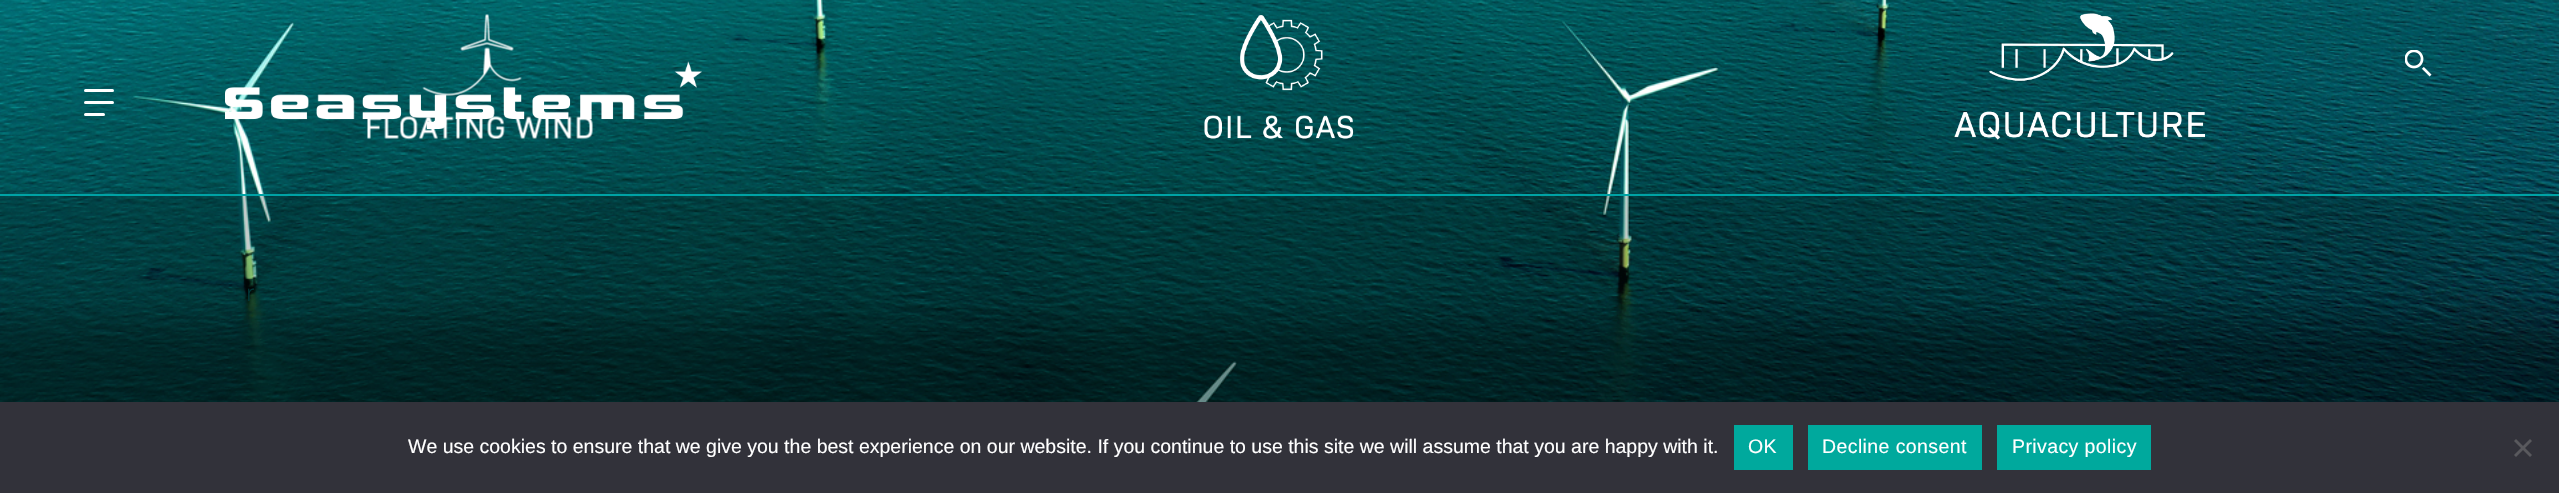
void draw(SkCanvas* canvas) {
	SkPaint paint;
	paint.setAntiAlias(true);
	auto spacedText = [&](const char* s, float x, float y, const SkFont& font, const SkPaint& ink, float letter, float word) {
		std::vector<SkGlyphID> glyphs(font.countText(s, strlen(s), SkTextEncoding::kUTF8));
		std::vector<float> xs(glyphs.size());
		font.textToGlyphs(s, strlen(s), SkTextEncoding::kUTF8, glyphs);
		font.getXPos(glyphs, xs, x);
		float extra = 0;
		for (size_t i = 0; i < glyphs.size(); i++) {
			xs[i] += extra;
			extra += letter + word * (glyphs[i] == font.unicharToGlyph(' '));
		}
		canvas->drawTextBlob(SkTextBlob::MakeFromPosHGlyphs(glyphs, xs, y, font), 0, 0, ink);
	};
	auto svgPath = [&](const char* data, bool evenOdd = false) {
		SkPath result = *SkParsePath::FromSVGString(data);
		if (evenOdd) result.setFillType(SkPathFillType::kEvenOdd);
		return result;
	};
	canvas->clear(0xffffffff);
	canvas->drawImageRect(SkImages::DeferredFromEncodedData(SkData::MakeFromFileName("img3.png")), SkRect::MakeXYWH(0, 0, 2559, 402), SkSamplingOptions());
	paint.setColor(0xffffffff);
	canvas->drawRoundRect(SkRect::MakeXYWH(84, 89, 30, 3), 1.5, 1.5, paint);
	canvas->drawRoundRect(SkRect::MakeXYWH(84, 101, 30, 3), 1.5, 1.5, paint);
	canvas->drawRoundRect(SkRect::MakeXYWH(84, 113, 21, 3), 1.5, 1.5, paint);
	canvas->drawImageRect(SkImages::DeferredFromEncodedData(SkData::MakeFromFileName("img4.png")), SkRect::MakeXYWH(367, 14, 226, 126), SkSamplingOptions());
	canvas->drawImageRect(SkImages::DeferredFromEncodedData(SkData::MakeFromFileName("img1.png")), SkRect::MakeXYWH(225, 61, 477, 68), SkSamplingOptions());
	canvas->drawImageRect(SkImages::DeferredFromEncodedData(SkData::MakeFromFileName("img2.png")), SkRect::MakeXYWH(2405, 50, 27, 27), SkSamplingOptions());
	canvas->drawImageRect(SkImages::DeferredFromEncodedData(SkData::MakeFromFileName("img5.png")), SkRect::MakeXYWH(1204, 15, 150, 124), SkSamplingOptions());
	canvas->drawImageRect(SkImages::DeferredFromEncodedData(SkData::MakeFromFileName("img6.png")), SkRect::MakeXYWH(1954, 13, 251, 127), SkSamplingOptions());
	paint.setColor(0x38001d1d);
	canvas->drawRect(SkRect::MakeXYWH(0, 196, 2559, 206), paint);
	paint.setColor(0xff00a2a4);
	canvas->drawRect(SkRect::MakeXYWH(0, 194, 2559, 2), paint);
	SkFont f1(fontMgr->matchFamilyStyle("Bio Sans", SkFontStyle(300, SkFontStyle::kNormal_Width, SkFontStyle::kUpright_Slant)), 24);
	f1.setSubpixel(true);
	paint.setColor(0xff013637);
	canvas->drawString("r", 246, 301, f1, paint);
	paint.setColor(0xff32323a);
	canvas->drawRect(SkRect::MakeXYWH(0, 402, 2559, 91), paint);
	SkFont f2(fontMgr->matchFamilyStyle("Liberation Sans", SkFontStyle::Normal()), 19.5);
	f2.setSubpixel(true);
	paint.setColor(0xffffffff);
	canvas->drawString("We use cookies to ensure that we give you the best experience on our website. If you continue to use this site we will assume that you are happy with it.", 408, 453, f2, paint);
	paint.setColor(0xff00a99d);
	canvas->drawRect(SkRect::MakeXYWH(1734, 425, 59, 45), paint);
	paint.setColor(0xffffffff);
	spacedText("OK", 1748, 453, f2, paint, 0.4, 0);
	paint.setColor(0xff00a99d);
	canvas->drawRect(SkRect::MakeXYWH(1808, 425, 174, 45), paint);
	paint.setColor(0xffffffff);
	spacedText("Decline consent", 1822, 453, f2, paint, 0.4, 0);
	paint.setColor(0xff00a99d);
	canvas->drawRect(SkRect::MakeXYWH(1997, 425, 154, 45), paint);
	paint.setColor(0xffffffff);
	spacedText("Privacy policy", 2012, 453, f2, paint, 0.4, 0);
	paint.setColor(0xff59595d);
	canvas->drawPath(svgPath("M2530 439L2532 441L2516 457L2514 455Z"), paint);
	canvas->drawPath(svgPath("M2514 441L2516 439L2532 455L2530 457Z"), paint);
}
